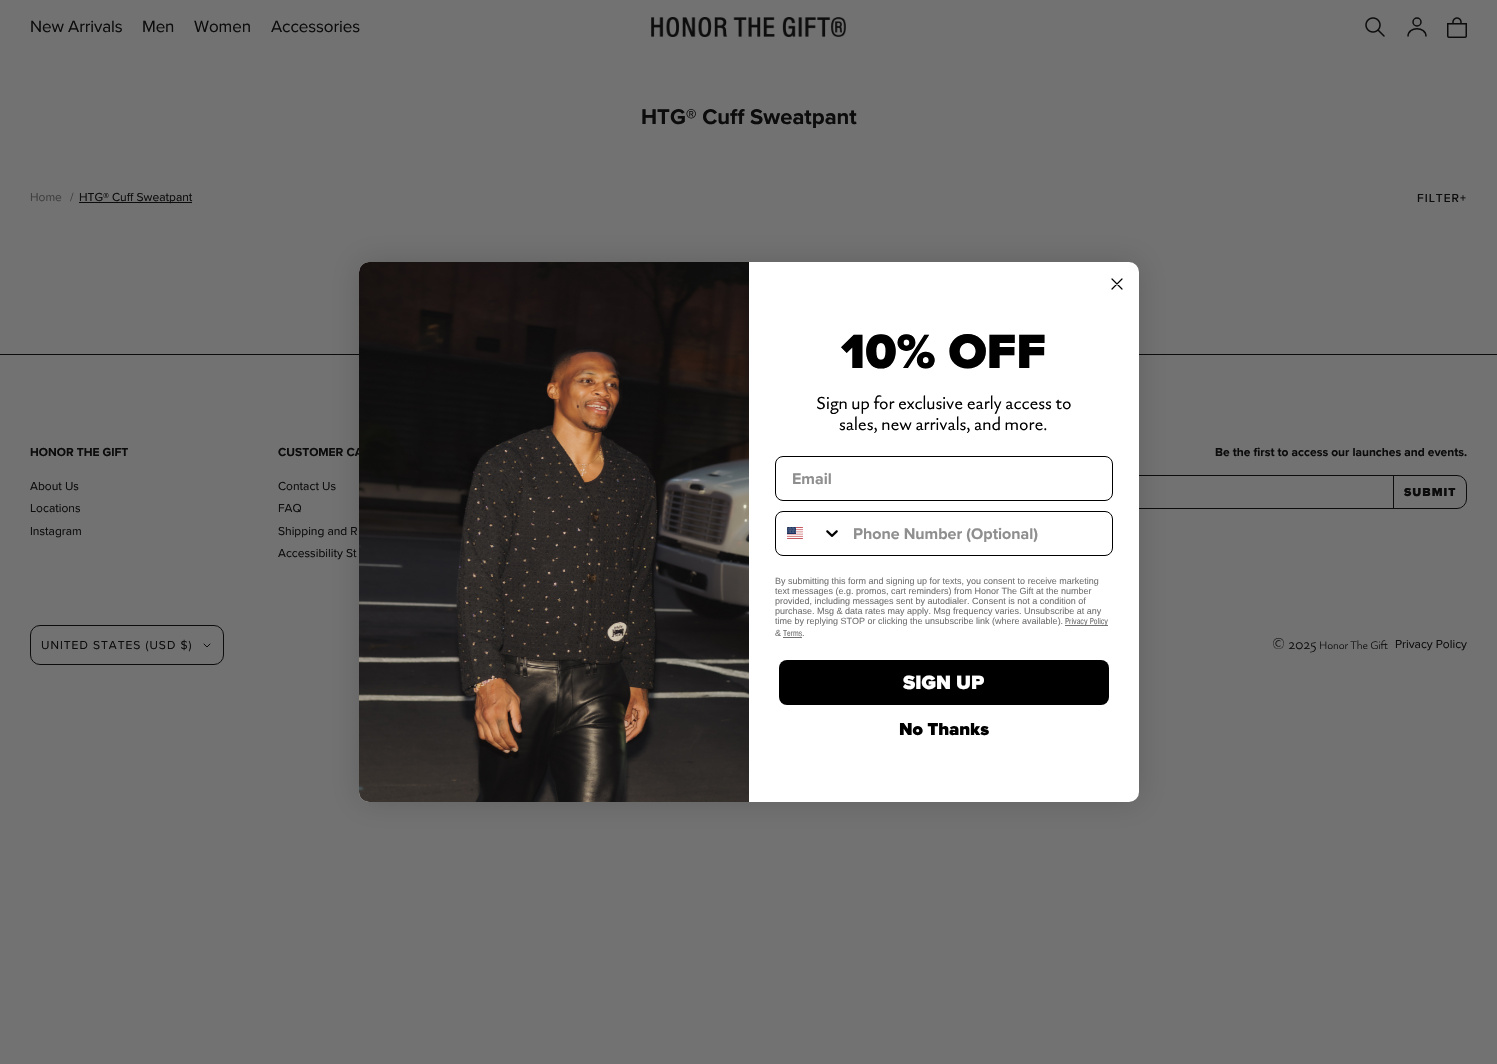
void draw(SkCanvas* canvas) {
	SkPaint paint;
	paint.setAntiAlias(true);
	auto spacedText = [&](const char* s, float x, float y, const SkFont& font, const SkPaint& ink, float letter, float word) {
		std::vector<SkGlyphID> glyphs(font.countText(s, strlen(s), SkTextEncoding::kUTF8));
		std::vector<float> xs(glyphs.size());
		font.textToGlyphs(s, strlen(s), SkTextEncoding::kUTF8, glyphs);
		font.getXPos(glyphs, xs, x);
		float extra = 0;
		for (size_t i = 0; i < glyphs.size(); i++) {
			xs[i] += extra;
			extra += letter + word * (glyphs[i] == font.unicharToGlyph(' '));
		}
		canvas->drawTextBlob(SkTextBlob::MakeFromPosHGlyphs(glyphs, xs, y, font), 0, 0, ink);
	};
	auto svgPath = [&](const char* data, bool evenOdd = false) {
		SkPath result = *SkParsePath::FromSVGString(data);
		if (evenOdd) result.setFillType(SkPathFillType::kEvenOdd);
		return result;
	};
	canvas->clear(0xff727272);
	SkFont f1(fontMgr->matchFamilyStyle("Proxima Nova", SkFontStyle::Normal()), 17);
	f1.setSubpixel(true);
	paint.setColor(0xff0c0c0c);
	spacedText("New Arrivals", 30, 32, f1, paint, -0.1, 0);
	spacedText("Men", 142, 32, f1, paint, -0.1, 0);
	spacedText("Women", 194, 32, f1, paint, -0.1, 0);
	spacedText("Accessories", 271, 32, f1, paint, -0.1, 0);
	canvas->drawImageRect(SkImages::DeferredFromEncodedData(SkData::MakeFromFileName("img1.png")), SkRect::MakeXYWH(651, 17, 195, 20), SkSamplingOptions());
	canvas->drawImageRect(SkImages::DeferredFromEncodedData(SkData::MakeFromFileName("img2.png")), SkRect::MakeXYWH(1365, 17, 20, 20), SkSamplingOptions());
	paint.setStroke(true);
	paint.setStrokeWidth(1.5);
	canvas->drawCircle(1417, 22, 4, paint);
	canvas->drawPath(svgPath("M1426 36.5C1426 26 1408 26 1408 36.5"), paint);
	canvas->drawImageRect(SkImages::DeferredFromEncodedData(SkData::MakeFromFileName("img3.png")), SkRect::MakeXYWH(1447, 17, 20, 21), SkSamplingOptions());
	SkFont f2(fontMgr->matchFamilyStyle("Proxima Nova", SkFontStyle::Bold()), 22);
	f2.setSubpixel(true);
	paint.setStroke(false);
	canvas->drawString("HTG® Cuff Sweatpant", 641, 124, f2, paint);
	SkFont f3(fontMgr->matchFamilyStyle("Proxima Nova", SkFontStyle::Normal()), 12);
	f3.setSubpixel(true);
	paint.setColor(0xff3f3f3f);
	canvas->drawString("Home", 30, 201, f3, paint);
	canvas->drawString("/", 70, 201, f3, paint);
	paint.setColor(0xff0c0c0c);
	canvas->drawRect(SkRect::MakeXYWH(79, 202, 113, 1), paint);
	canvas->drawString("HTG® Cuff Sweatpant", 79, 201, f3, paint);
	SkFont f4(fontMgr->matchFamilyStyle("Proxima Nova", SkFontStyle(500, SkFontStyle::kNormal_Width, SkFontStyle::kUpright_Slant)), 12);
	f4.setSubpixel(true);
	spacedText("FILTER+", 1417, 202, f4, paint, 1, 0);
	canvas->drawRect(SkRect::MakeXYWH(0, 354, 1497, 1), paint);
	paint.setStroke(true);
	paint.setStrokeWidth(1);
	canvas->drawRoundRect(SkRect::MakeXYWH(1067.5, 475.5, 399, 33), 9.5, 9.5, paint);
	paint.setStroke(false);
	paint.setColor(0x26000000);
	paint.setMaskFilter(SkMaskFilter::MakeBlur(kNormal_SkBlurStyle, 15));
	canvas->drawRoundRect(SkRect::MakeXYWH(359, 262, 780, 540), 10, 10, paint);
	paint.setMaskFilter(nullptr);
	SkFont f5(fontMgr->matchFamilyStyle("Proxima Nova", SkFontStyle::Bold()), 12);
	f5.setSubpixel(true);
	paint.setColor(0xff0c0c0c);
	canvas->drawString("CUSTOMER CA", 278, 456, f5, paint);
	paint.setColor(0xffffffff);
	canvas->drawRoundRect(SkRect::MakeXYWH(359, 262, 780, 540), 10, 10, paint);
	paint.setStroke(true);
	paint.setStrokeWidth(1.2);
	paint.setStrokeCap(SkPaint::kRound_Cap);
	paint.setStrokeJoin(SkPaint::kRound_Join);
	paint.setColor(0xff000000);
	canvas->drawPath(svgPath("M1112 279L1122 289M1112 289L1122 279Z"), paint);
	canvas->drawImageRect(SkImages::DeferredFromEncodedData(SkData::MakeFromFileName("img4.png")), SkRect::MakeXYWH(359, 262, 390, 540), SkSamplingOptions());
	SkFont f6(fontMgr->matchFamilyStyle("Proxima Nova", SkFontStyle(900, SkFontStyle::kNormal_Width, SkFontStyle::kUpright_Slant)), 50);
	f6.setSubpixel(true);
	paint.setStroke(false);
	canvas->drawString("10% OFF", 841, 368, f6, paint);
	SkFont f7(fontMgr->matchFamilyStyle("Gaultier", SkFontStyle::Normal()), 19);
	f7.setSubpixel(true);
	canvas->drawString("Sign up for exclusive early access to", 816, 409, f7, paint);
	canvas->drawString("sales, new arrivals, and more.", 839, 430, f7, paint);
	paint.setStroke(true);
	paint.setStrokeWidth(1);
	paint.setStrokeCap(SkPaint::kButt_Cap);
	paint.setStrokeJoin(SkPaint::kMiter_Join);
	canvas->drawRoundRect(SkRect::MakeXYWH(775.5, 456.5, 337, 44), 7.5, 7.5, paint);
	SkFont f8(fontMgr->matchFamilyStyle("Proxima Nova", SkFontStyle::Bold()), 16);
	f8.setSubpixel(true);
	paint.setStroke(false);
	paint.setColor(0xff8f8f8f);
	canvas->drawString("Email", 792, 484, f8, paint);
	paint.setStroke(true);
	paint.setColor(0xff000000);
	canvas->drawRoundRect(SkRect::MakeXYWH(775.5, 511.5, 337, 44), 7.5, 7.5, paint);
	canvas->drawImageRect(SkImages::DeferredFromEncodedData(SkData::MakeFromFileName("img5.png")), SkRect::MakeXYWH(787, 527, 16, 12), SkSamplingOptions());
	canvas->drawImageRect(SkImages::DeferredFromEncodedData(SkData::MakeFromFileName("img6.png")), SkRect::MakeXYWH(826, 530, 12, 7), SkSamplingOptions());
	paint.setStroke(false);
	paint.setColor(0xff8f8f8f);
	canvas->drawString("Phone Number (Optional)", 853, 539, f8, paint);
	SkFont f9(fontMgr->matchFamilyStyle("Liberation Sans", SkFontStyle::Normal()), 9);
	f9.setSubpixel(true);
	paint.setColor(0xff727272);
	canvas->drawString("By submitting this form and signing up for texts, you consent to receive marketing", 775, 584, f9, paint);
	canvas->drawString("text messages (e.g. promos, cart reminders) from Honor The Gift at the number", 775, 594, f9, paint);
	canvas->drawString("provided, including messages sent by autodialer. Consent is not a condition of", 775, 604, f9, paint);
	canvas->drawString("purchase. Msg & data rates may apply. Msg frequency varies. Unsubscribe at any", 775, 614, f9, paint);
	canvas->drawString("time by replying STOP or clicking the unsubscribe link (where available).", 775, 624, f9, paint);
	canvas->drawRect(SkRect::MakeXYWH(1065, 625, 43, 1), paint);
	SkFont f10(fontMgr->matchFamilyStyle("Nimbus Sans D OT", SkFontStyle::Normal()), 9);
	f10.setSubpixel(true);
	canvas->drawString("Privacy Policy", 1065, 624, f10, paint);
	canvas->drawString("&", 775, 636, f9, paint);
	canvas->drawString("Terms", 783, 636, f10, paint);
	canvas->drawRect(SkRect::MakeXYWH(783, 637, 19, 1), paint);
	canvas->drawString(".", 802, 636, f9, paint);
	paint.setColor(0xff000000);
	canvas->drawRoundRect(SkRect::MakeXYWH(779, 660, 330, 45), 8, 8, paint);
	SkFont f11(fontMgr->matchFamilyStyle("Proxima Nova", SkFontStyle(900, SkFontStyle::kNormal_Width, SkFontStyle::kUpright_Slant)), 20);
	f11.setSubpixel(true);
	paint.setColor(0xffffffff);
	canvas->drawString("SIGN UP", 903, 689, f11, paint);
	SkFont f12(fontMgr->matchFamilyStyle("Proxima Nova", SkFontStyle(900, SkFontStyle::kNormal_Width, SkFontStyle::kUpright_Slant)), 18);
	f12.setSubpixel(true);
	paint.setColor(0xff000000);
	canvas->drawString("No Thanks", 899, 735, f12, paint);
	paint.setColor(0xff0c0c0c);
	canvas->drawString("HONOR THE GIFT", 30, 456, f5, paint);
	canvas->drawString("About Us", 30, 490, f3, paint);
	canvas->drawString("Locations", 30, 512, f3, paint);
	canvas->drawString("Instagram", 30, 535, f3, paint);
	canvas->drawString("Contact Us", 278, 490, f3, paint);
	canvas->drawString("FAQ", 278, 512, f3, paint);
	canvas->drawString("Shipping and R", 278, 535, f3, paint);
	canvas->drawString("Accessibility St", 278, 557, f3, paint);
	canvas->drawString("Be the first to access our launches and events.", 1215, 456, f5, paint);
	canvas->drawRect(SkRect::MakeXYWH(1393, 476, 1, 32), paint);
	SkFont f13(fontMgr->matchFamilyStyle("Proxima Nova", SkFontStyle(900, SkFontStyle::kNormal_Width, SkFontStyle::kUpright_Slant)), 12);
	f13.setSubpixel(true);
	spacedText("SUBMIT", 1404, 496, f13, paint, 1, 0);
	paint.setStroke(true);
	canvas->drawRoundRect(SkRect::MakeXYWH(30.5, 625.5, 193, 39), 9.5, 9.5, paint);
	paint.setStroke(false);
	spacedText("UNITED STATES (USD $)", 41, 649, f3, paint, 1, 0);
	paint.setStroke(true);
	paint.setStrokeCap(SkPaint::kRound_Cap);
	paint.setStrokeJoin(SkPaint::kRound_Join);
	canvas->drawPath(svgPath("M210 644L207 647L204 644"), paint);
	SkFont f14(fontMgr->matchFamilyStyle("Gaultier", SkFontStyle(300, SkFontStyle::kNormal_Width, SkFontStyle::kUpright_Slant)), 17);
	f14.setSubpixel(true);
	paint.setStroke(false);
	spacedText("© 2025", 1272, 649, f14, paint, -0.1, 0);
	SkFont f15(fontMgr->matchFamilyStyle("Gaultier", SkFontStyle(300, SkFontStyle::kNormal_Width, SkFontStyle::kUpright_Slant)), 12);
	f15.setSubpixel(true);
	spacedText("Honor The Gift", 1319, 649, f15, paint, -0.1, 0);
	canvas->drawString("Privacy Policy", 1395, 648, f3, paint);
}
